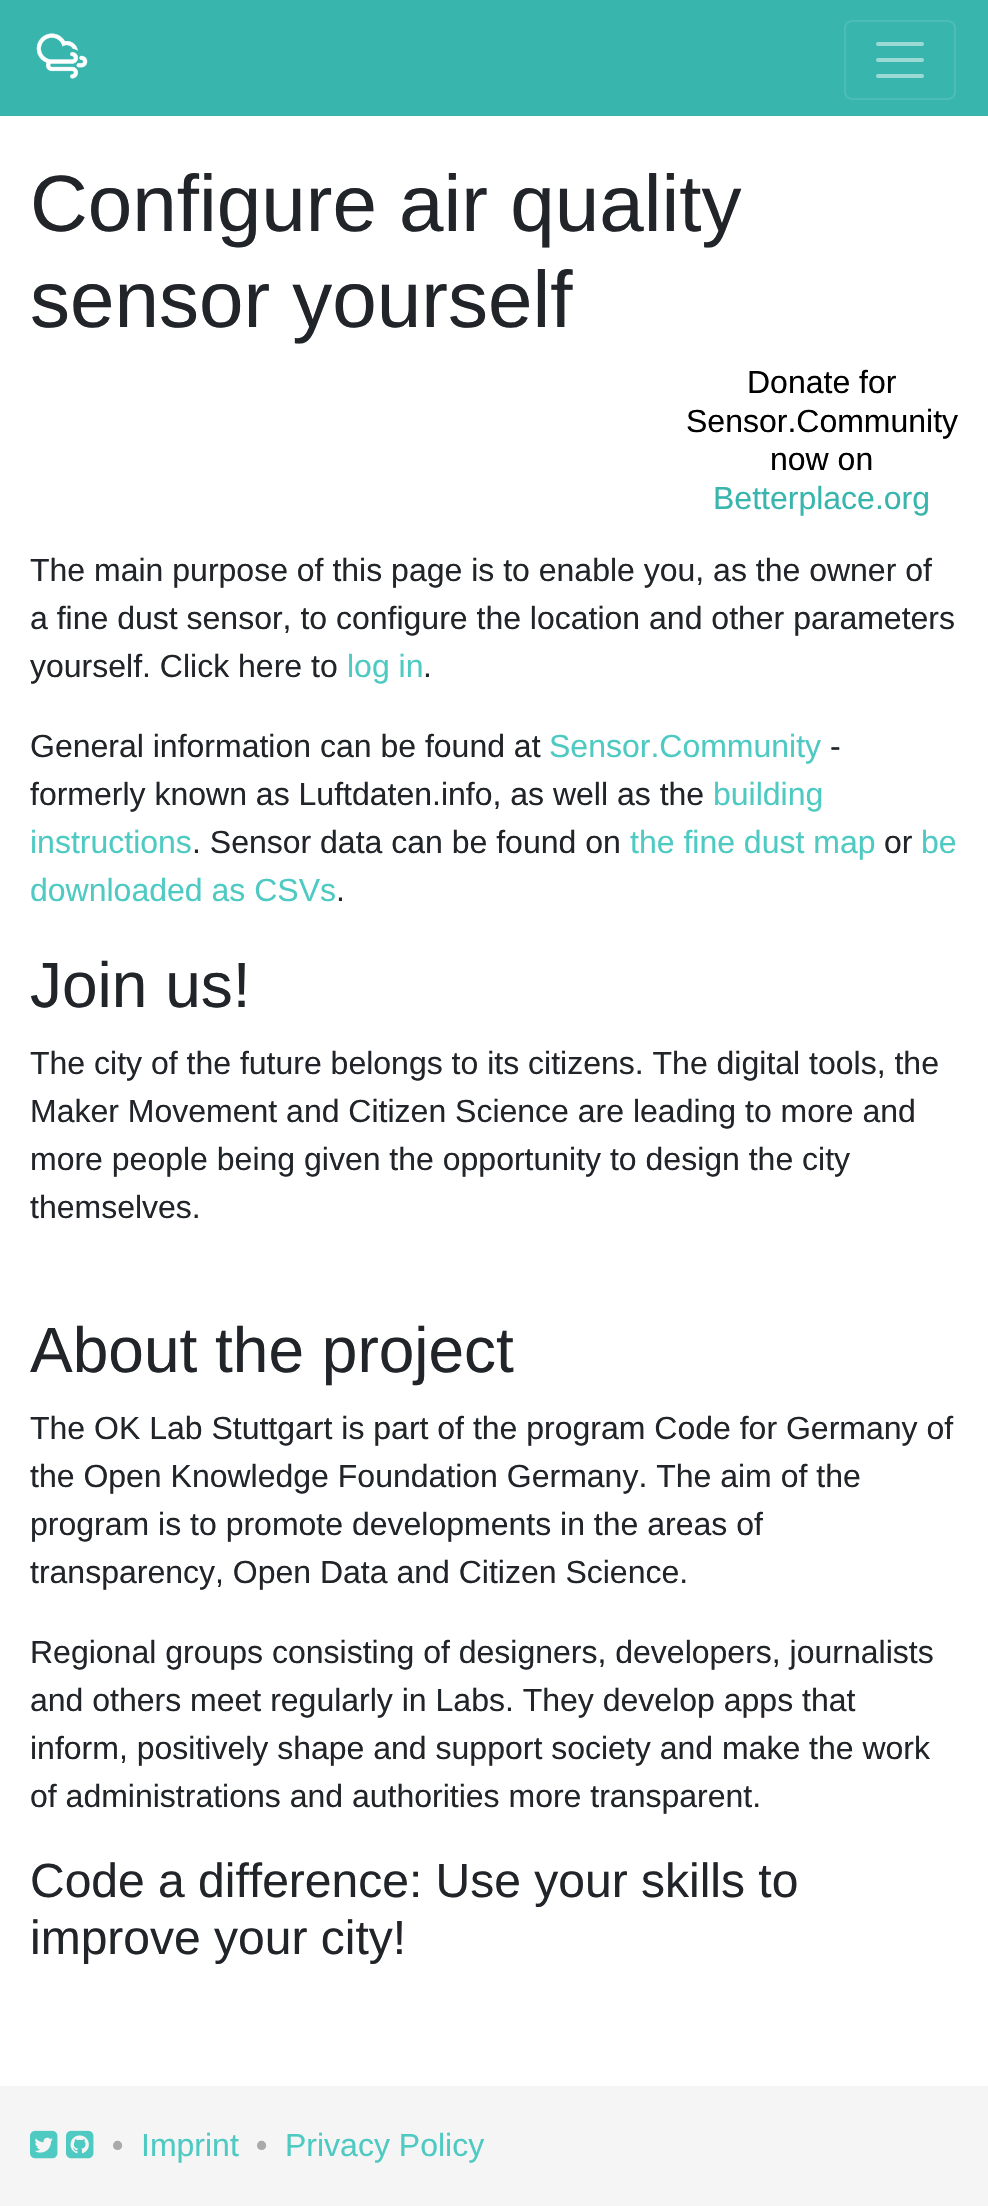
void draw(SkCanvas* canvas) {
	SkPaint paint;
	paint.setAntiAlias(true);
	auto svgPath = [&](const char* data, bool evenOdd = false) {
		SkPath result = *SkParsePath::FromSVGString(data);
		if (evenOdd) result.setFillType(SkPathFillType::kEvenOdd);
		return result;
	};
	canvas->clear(0xffffffff);
	paint.setColor(0xff38b5ad);
	canvas->drawRect(SkRect::MakeXYWH(0, 0, 988, 116), paint);
	canvas->drawImageRect(SkImages::DeferredFromEncodedData(SkData::MakeFromFileName("img1.png")), SkRect::MakeXYWH(36, 33, 52, 46), SkSamplingOptions());
	paint.setStroke(true);
	paint.setStrokeWidth(2);
	paint.setColor(0xff4cbcb5);
	canvas->drawRoundRect(SkRect::MakeXYWH(845, 21, 110, 78), 7, 7, paint);
	paint.setStrokeWidth(4);
	paint.setStrokeCap(SkPaint::kRound_Cap);
	paint.setColor(0xff9cdad6);
	canvas->drawPath(svgPath("M878 44H922M878 60H922M878 76H922"), paint);
	SkFont f1(fontMgr->matchFamilyStyle("Liberation Sans", SkFontStyle::Normal()), 80);
	f1.setSubpixel(true);
	paint.setStroke(false);
	paint.setColor(0xff212529);
	canvas->drawString("Configure air quality", 30, 231, f1, paint);
	canvas->drawString("sensor yourself", 30, 327, f1, paint);
	SkFont f2(fontMgr->matchFamilyStyle("Liberation Sans", SkFontStyle::Normal()), 32);
	f2.setSubpixel(true);
	paint.setColor(0xff000000);
	canvas->drawString("Donate for", 747, 393, f2, paint);
	canvas->drawString("Sensor.Community", 686, 432, f2, paint);
	canvas->drawString("now on", 770, 470, f2, paint);
	paint.setColor(0xff38b5ad);
	canvas->drawString("Betterplace.org", 713, 509, f2, paint);
	paint.setColor(0xff212529);
	canvas->drawString("The main purpose of this page is to enable you, as the owner of", 30, 581, f2, paint);
	canvas->drawString("a fine dust sensor, to configure the location and other parameters", 30, 629, f2, paint);
	canvas->drawString("yourself. Click here to", 30, 677, f2, paint);
	paint.setColor(0xff4ecac2);
	canvas->drawString("log in", 347, 677, f2, paint);
	paint.setColor(0xff212529);
	canvas->drawString(".", 423, 677, f2, paint);
	canvas->drawString("General information can be found at", 30, 757, f2, paint);
	paint.setColor(0xff4ecac2);
	canvas->drawString("Sensor.Community", 549, 757, f2, paint);
	paint.setColor(0xff212529);
	canvas->drawString("-", 830, 757, f2, paint);
	canvas->drawString("formerly known as Luftdaten.info, as well as the", 30, 805, f2, paint);
	paint.setColor(0xff4ecac2);
	canvas->drawString("building", 713, 805, f2, paint);
	canvas->drawString("instructions", 30, 853, f2, paint);
	paint.setColor(0xff212529);
	canvas->drawString(". Sensor data can be found on", 192, 853, f2, paint);
	paint.setColor(0xff4ecac2);
	canvas->drawString("the fine dust map", 630, 853, f2, paint);
	paint.setColor(0xff212529);
	canvas->drawString("or", 884, 853, f2, paint);
	paint.setColor(0xff4ecac2);
	canvas->drawString("be", 921, 853, f2, paint);
	canvas->drawString("downloaded as CSVs", 30, 901, f2, paint);
	paint.setColor(0xff212529);
	canvas->drawString(".", 336, 901, f2, paint);
	SkFont f3(fontMgr->matchFamilyStyle("Liberation Sans", SkFontStyle::Normal()), 64);
	f3.setSubpixel(true);
	canvas->drawString("Join us!", 30, 1007, f3, paint);
	canvas->drawString("The city of the future belongs to its citizens. The digital tools, the", 30, 1074, f2, paint);
	canvas->drawString("Maker Movement and Citizen Science are leading to more and", 30, 1122, f2, paint);
	canvas->drawString("more people being given the opportunity to design the city", 30, 1170, f2, paint);
	canvas->drawString("themselves.", 30, 1218, f2, paint);
	canvas->drawString("About the project", 30, 1372, f3, paint);
	canvas->drawString("The OK Lab Stuttgart is part of the program Code for Germany of", 30, 1439, f2, paint);
	canvas->drawString("the Open Knowledge Foundation Germany. The aim of the", 30, 1487, f2, paint);
	canvas->drawString("program is to promote developments in the areas of", 30, 1535, f2, paint);
	canvas->drawString("transparency, Open Data and Citizen Science.", 30, 1583, f2, paint);
	canvas->drawString("Regional groups consisting of designers, developers, journalists", 30, 1663, f2, paint);
	canvas->drawString("and others meet regularly in Labs. They develop apps that", 30, 1711, f2, paint);
	canvas->drawString("inform, positively shape and support society and make the work", 30, 1759, f2, paint);
	canvas->drawString("of administrations and authorities more transparent.", 30, 1807, f2, paint);
	SkFont f4(fontMgr->matchFamilyStyle("Liberation Sans", SkFontStyle::Normal()), 48);
	f4.setSubpixel(true);
	canvas->drawString("Code a difference: Use your skills to", 30, 1897, f4, paint);
	canvas->drawString("improve your city!", 30, 1954, f4, paint);
	paint.setColor(0xfff5f5f5);
	canvas->drawRect(SkRect::MakeXYWH(0, 2086, 988, 120), paint);
	canvas->drawImageRect(SkImages::DeferredFromEncodedData(SkData::MakeFromFileName("img2.png")), SkRect::MakeXYWH(30, 2130, 28, 29), SkSamplingOptions());
	canvas->drawImageRect(SkImages::DeferredFromEncodedData(SkData::MakeFromFileName("img3.png")), SkRect::MakeXYWH(66, 2130, 28, 29), SkSamplingOptions());
	SkFont f5(fontMgr->matchFamilyStyle("Liberation Sans", SkFontStyle::Bold()), 32);
	f5.setSubpixel(true);
	paint.setColor(0xffaaaaaa);
	canvas->drawString("•", 112, 2156, f5, paint);
	paint.setColor(0xff4ecac2);
	canvas->drawString("Imprint", 141, 2156, f2, paint);
	paint.setColor(0xffaaaaaa);
	canvas->drawString("•", 256, 2156, f5, paint);
	paint.setColor(0xff4ecac2);
	canvas->drawString("Privacy Policy", 285, 2156, f2, paint);
}
